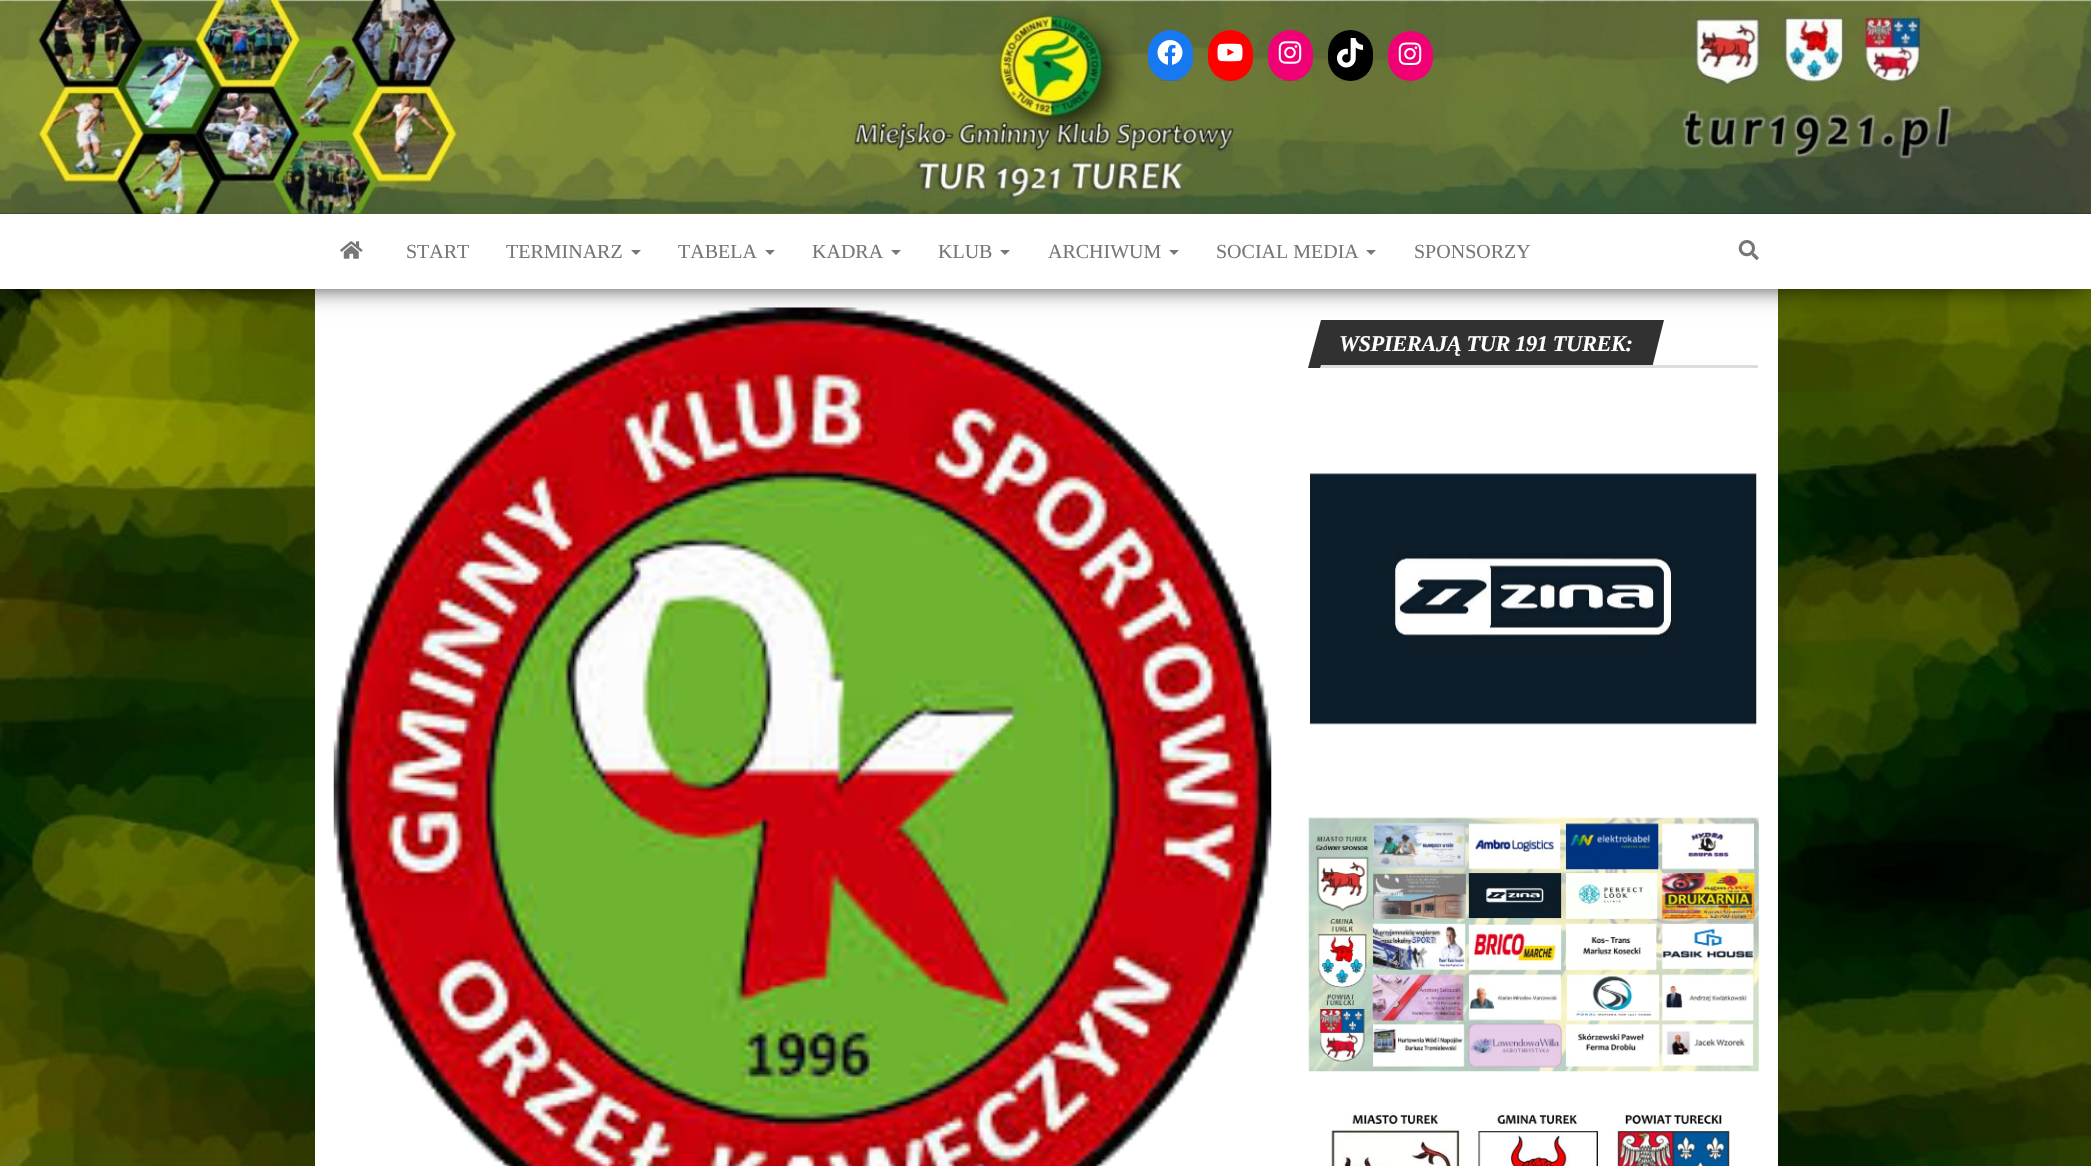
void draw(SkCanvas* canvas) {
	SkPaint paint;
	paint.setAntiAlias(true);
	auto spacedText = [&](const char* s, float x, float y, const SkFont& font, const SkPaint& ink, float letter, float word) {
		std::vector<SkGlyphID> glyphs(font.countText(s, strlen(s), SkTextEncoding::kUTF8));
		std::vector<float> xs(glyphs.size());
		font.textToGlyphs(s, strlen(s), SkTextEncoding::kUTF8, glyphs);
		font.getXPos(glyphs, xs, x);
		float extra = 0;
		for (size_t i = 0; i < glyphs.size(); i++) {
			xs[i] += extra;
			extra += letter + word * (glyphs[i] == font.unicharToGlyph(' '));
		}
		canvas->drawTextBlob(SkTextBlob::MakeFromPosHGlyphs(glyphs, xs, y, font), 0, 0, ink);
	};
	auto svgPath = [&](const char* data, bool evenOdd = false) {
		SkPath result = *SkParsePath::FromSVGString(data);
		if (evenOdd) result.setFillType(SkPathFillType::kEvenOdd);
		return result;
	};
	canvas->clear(0xffffffff);
	canvas->drawImageRect(SkImages::DeferredFromEncodedData(SkData::MakeFromFileName("img1.png")), SkRect::MakeXYWH(0, 213, 2091, 953), SkSamplingOptions());
	canvas->drawImageRect(SkImages::DeferredFromEncodedData(SkData::MakeFromFileName("img2.png")), SkRect::MakeXYWH(0, 0, 2091, 214), SkSamplingOptions());
	paint.setColor(0xff1778f2);
	canvas->drawRoundRect(SkRect::MakeXYWH(1148, 30, 45, 51), 22.5, 22.5, paint);
	paint.setColor(0x14000000);
	canvas->drawRect(SkRect::MakeXYWH(1159, 80, 22, 1), paint);
	canvas->drawImageRect(SkImages::DeferredFromEncodedData(SkData::MakeFromFileName("img3.png")), SkRect::MakeXYWH(1157, 40, 26, 25), SkSamplingOptions());
	paint.setColor(0xffff0000);
	canvas->drawRoundRect(SkRect::MakeXYWH(1208, 30, 45, 51), 22.5, 22.5, paint);
	paint.setColor(0x14000000);
	canvas->drawRect(SkRect::MakeXYWH(1219, 80, 22, 1), paint);
	canvas->drawImageRect(SkImages::DeferredFromEncodedData(SkData::MakeFromFileName("img4.png")), SkRect::MakeXYWH(1217, 43, 26, 19), SkSamplingOptions());
	paint.setColor(0xfff00075);
	canvas->drawRoundRect(SkRect::MakeXYWH(1268, 30, 45, 51), 22.5, 22.5, paint);
	paint.setColor(0x14000000);
	canvas->drawRect(SkRect::MakeXYWH(1279, 80, 22, 1), paint);
	canvas->drawImageRect(SkImages::DeferredFromEncodedData(SkData::MakeFromFileName("img5.png")), SkRect::MakeXYWH(1278, 41, 24, 23), SkSamplingOptions());
	paint.setColor(0xff000000);
	canvas->drawRoundRect(SkRect::MakeXYWH(1328, 30, 45, 51), 22.5, 22.5, paint);
	paint.setColor(0x14000000);
	canvas->drawRect(SkRect::MakeXYWH(1339, 80, 22, 1), paint);
	canvas->drawImageRect(SkImages::DeferredFromEncodedData(SkData::MakeFromFileName("img6.png")), SkRect::MakeXYWH(1337, 38, 27, 30), SkSamplingOptions());
	paint.setColor(0xfff00075);
	canvas->drawRoundRect(SkRect::MakeXYWH(1388, 31, 45, 50), 22.5, 22.5, paint);
	canvas->drawImageRect(SkImages::DeferredFromEncodedData(SkData::MakeFromFileName("img7.png")), SkRect::MakeXYWH(1398, 42, 24, 23), SkSamplingOptions());
	paint.setColor(0xffffffff);
	canvas->drawRect(SkRect::MakeXYWH(315, 289, 1463, 877), paint);
	paint.setColor(0x33000000);
	paint.setMaskFilter(SkMaskFilter::MakeBlur(kNormal_SkBlurStyle, 6));
	canvas->drawRect(SkRect::MakeXYWH(6, 230, 2079, 63), paint);
	paint.setMaskFilter(nullptr);
	paint.setColor(0x1f000000);
	paint.setMaskFilter(SkMaskFilter::MakeBlur(kNormal_SkBlurStyle, 12.5));
	canvas->drawRect(SkRect::MakeXYWH(0, 218, 2091, 75), paint);
	paint.setMaskFilter(nullptr);
	paint.setColor(0x6b000000);
	paint.setMaskFilter(SkMaskFilter::MakeBlur(kNormal_SkBlurStyle, 12.5));
	canvas->drawRect(SkRect::MakeXYWH(15, 241, 2061, 45), paint);
	paint.setMaskFilter(nullptr);
	paint.setColor(0xffffffff);
	canvas->drawRect(SkRect::MakeXYWH(0, 214, 2091, 75), paint);
	canvas->drawImageRect(SkImages::DeferredFromEncodedData(SkData::MakeFromFileName("img8.png")), SkRect::MakeXYWH(340, 241, 23, 18), SkSamplingOptions());
	SkFont f1(fontMgr->matchFamilyStyle("Liberation Serif", SkFontStyle::Normal()), 20);
	f1.setSubpixel(true);
	paint.setColor(0xff777777);
	canvas->drawString("START", 406, 258, f1, paint);
	canvas->drawString("TERMINARZ", 506, 258, f1, paint);
	canvas->drawPath(svgPath("M631 250H641L636 255Z"), paint);
	canvas->drawString("TABELA", 678, 258, f1, paint);
	canvas->drawPath(svgPath("M765 250H775L770 255Z"), paint);
	canvas->drawString("KADRA", 812, 258, f1, paint);
	canvas->drawPath(svgPath("M891 250H901L896 255Z"), paint);
	canvas->drawString("KLUB", 938, 258, f1, paint);
	canvas->drawPath(svgPath("M1000 250H1010L1005 255Z"), paint);
	canvas->drawString("ARCHIWUM", 1048, 258, f1, paint);
	canvas->drawPath(svgPath("M1169 250H1179L1174 255Z"), paint);
	canvas->drawString("SOCIAL MEDIA", 1216, 258, f1, paint);
	canvas->drawPath(svgPath("M1366 250H1376L1371 255Z"), paint);
	canvas->drawString("SPONSORZY", 1414, 258, f1, paint);
	canvas->drawImageRect(SkImages::DeferredFromEncodedData(SkData::MakeFromFileName("img9.png")), SkRect::MakeXYWH(1738, 240, 21, 20), SkSamplingOptions());
	canvas->drawImageRect(SkImages::DeferredFromEncodedData(SkData::MakeFromFileName("img10.png")), SkRect::MakeXYWH(333, 307, 939, 859), SkSamplingOptions());
	paint.setColor(0xff313131);
	canvas->drawPath(svgPath("M1321 320H1664L1652 368H1308Z"), paint);
	SkFont f2(fontMgr->matchFamilyStyle("Liberation Serif", SkFontStyle::BoldItalic()), 22.5);
	f2.setSubpixel(true);
	paint.setColor(0xffffffff);
	spacedText("WSPIERAJĄ TUR 191 TUREK:", 1339, 351, f2, paint, -0.45, 0);
	paint.setColor(0xffdddddd);
	canvas->drawPath(svgPath("M1321 365H1758V368H1320Z"), paint);
	canvas->drawImageRect(SkImages::DeferredFromEncodedData(SkData::MakeFromFileName("img11.png")), SkRect::MakeXYWH(1310, 473, 447, 252), SkSamplingOptions());
	canvas->drawImageRect(SkImages::DeferredFromEncodedData(SkData::MakeFromFileName("img12.png")), SkRect::MakeXYWH(1308, 817, 451, 255), SkSamplingOptions());
	canvas->drawImageRect(SkImages::DeferredFromEncodedData(SkData::MakeFromFileName("img13.png")), SkRect::MakeXYWH(1331, 1113, 400, 53), SkSamplingOptions());
}
